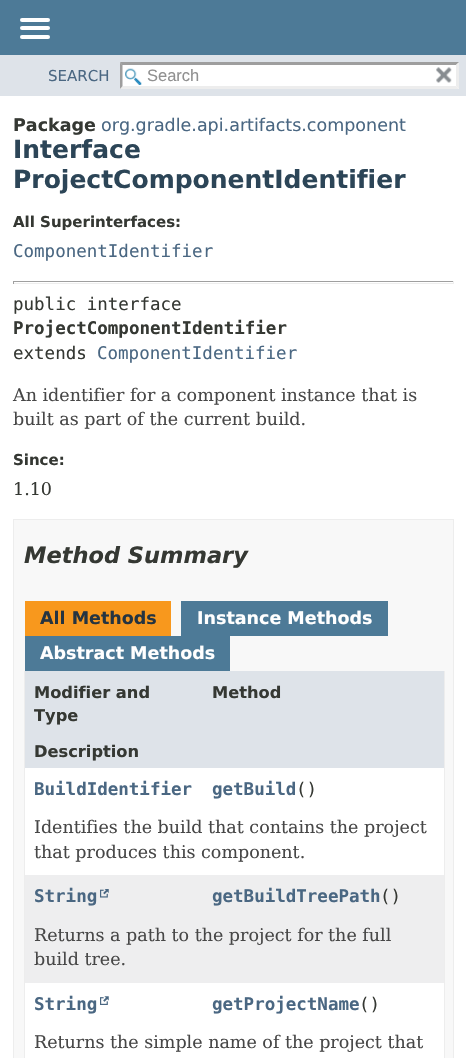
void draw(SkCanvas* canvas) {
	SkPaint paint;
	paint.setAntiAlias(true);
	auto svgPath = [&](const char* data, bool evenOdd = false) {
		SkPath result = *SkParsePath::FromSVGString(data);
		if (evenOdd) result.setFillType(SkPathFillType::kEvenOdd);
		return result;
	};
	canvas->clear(0xffffffff);
	paint.setColor(0xff4d7a97);
	canvas->drawRect(SkRect::MakeXYWH(0, 0, 466, 55), paint);
	paint.setColor(0xffffffff);
	canvas->drawRoundRect(SkRect::MakeXYWH(20, 18, 30, 4), 2, 2, paint);
	canvas->drawRoundRect(SkRect::MakeXYWH(20, 26, 30, 4), 2, 2, paint);
	canvas->drawRoundRect(SkRect::MakeXYWH(20, 35, 30, 4), 2, 2, paint);
	paint.setColor(0xffdee3e9);
	canvas->drawRect(SkRect::MakeXYWH(0, 55, 466, 41), paint);
	SkFont f1(fontMgr->matchFamilyStyle("DejaVu Sans", SkFontStyle::Normal()), 15);
	f1.setSubpixel(true);
	paint.setColor(0xff4a6782);
	canvas->drawString("SEARCH", 48, 81, f1, paint);
	paint.setColor(0xffffffff);
	canvas->drawRect(SkRect::MakeXYWH(120, 63, 339, 26), paint);
	canvas->drawImageRect(SkImages::DeferredFromEncodedData(SkData::MakeFromFileName("img1.png")), SkRect::MakeXYWH(125, 68, 17, 17), SkSamplingOptions());
	paint.setColor(0xff9e9e9e);
	canvas->drawPath(svgPath("M120 62H459L456 65H122Z"), paint);
	paint.setColor(0xffededed);
	canvas->drawPath(svgPath("M459 62.5V89L456 86V65Z"), paint);
	canvas->drawPath(svgPath("M459 89H120L122 86H456Z"), paint);
	paint.setColor(0xff9e9e9e);
	canvas->drawPath(svgPath("M120 89V62.5L122.5 65V86Z"), paint);
	SkFont f2(fontMgr->matchFamilyStyle("Liberation Sans", SkFontStyle::Normal()), 16.5);
	f2.setSubpixel(true);
	paint.setColor(0xff909090);
	canvas->drawString("Search", 147, 81, f2, paint);
	canvas->drawImageRect(SkImages::DeferredFromEncodedData(SkData::MakeFromFileName("img2.png")), SkRect::MakeXYWH(436, 67, 16, 16), SkSamplingOptions());
	SkFont f3(fontMgr->matchFamilyStyle("DejaVu Sans", SkFontStyle::Bold()), 17.5);
	f3.setSubpixel(true);
	paint.setColor(0xff353833);
	canvas->drawString("Package", 13, 131, f3, paint);
	SkFont f4(fontMgr->matchFamilyStyle("DejaVu Sans", SkFontStyle::Normal()), 17.5);
	f4.setSubpixel(true);
	paint.setColor(0xff4a6782);
	canvas->drawString("org.gradle.api.artifacts.component", 101, 131, f4, paint);
	SkFont f5(fontMgr->matchFamilyStyle("DejaVu Sans", SkFontStyle::Bold()), 25);
	f5.setSubpixel(true);
	paint.setColor(0xff2c4557);
	canvas->drawString("Interface", 13, 158, f5, paint);
	canvas->drawString("ProjectComponentIdentifier", 13, 188, f5, paint);
	SkFont f6(fontMgr->matchFamilyStyle("DejaVu Sans", SkFontStyle::Bold()), 15);
	f6.setSubpixel(true);
	paint.setColor(0xff353833);
	canvas->drawString("All Superinterfaces:", 13, 227, f6, paint);
	SkFont f7(fontMgr->matchFamilyStyle("DejaVu Sans Mono", SkFontStyle::Normal()), 17.5);
	f7.setSubpixel(true);
	paint.setColor(0xff4a6782);
	canvas->drawString("ComponentIdentifier", 13, 257, f7, paint);
	paint.setColor(0xff9f9f9f);
	canvas->drawRect(SkRect::MakeXYWH(13, 281, 441, 1), paint);
	paint.setColor(0xffeeeeee);
	canvas->drawRect(SkRect::MakeXYWH(453, 281, 1, 3), paint);
	canvas->drawRect(SkRect::MakeXYWH(13, 283, 441, 1), paint);
	paint.setColor(0xff9f9f9f);
	canvas->drawRect(SkRect::MakeXYWH(13, 281, 1, 3), paint);
	paint.setColor(0xff353833);
	canvas->drawString("public interface", 13, 310, f7, paint);
	SkFont f8(fontMgr->matchFamilyStyle("DejaVu Sans Mono", SkFontStyle::Bold()), 17.5);
	f8.setSubpixel(true);
	canvas->drawString("ProjectComponentIdentifier", 13, 334, f8, paint);
	canvas->drawString("extends", 13, 359, f7, paint);
	paint.setColor(0xff4a6782);
	canvas->drawString("ComponentIdentifier", 97, 359, f7, paint);
	SkFont f9(fontMgr->matchFamilyStyle("DejaVu Serif", SkFontStyle::Normal()), 17.5);
	f9.setSubpixel(true);
	paint.setColor(0xff474747);
	canvas->drawString("An identifier for a component instance that is", 13, 401, f9, paint);
	canvas->drawString("built as part of the current build.", 13, 425, f9, paint);
	paint.setColor(0xff353833);
	canvas->drawString("Since:", 13, 465, f6, paint);
	canvas->drawString("1.10", 13, 495, f9, paint);
	paint.setColor(0xfff8f8f8);
	canvas->drawRect(SkRect::MakeXYWH(13.5, 519.5, 440, 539), paint);
	paint.setStroke(true);
	paint.setStrokeWidth(1);
	paint.setColor(0xffededed);
	canvas->drawRect(SkRect::MakeXYWH(13.5, 519.5, 440, 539), paint);
	SkFont f10(fontMgr->matchFamilyStyle("DejaVu Sans", SkFontStyle::BoldItalic()), 22.5);
	f10.setSubpixel(true);
	paint.setStroke(false);
	paint.setColor(0xff353833);
	canvas->drawString("Method Summary", 24, 563, f10, paint);
	paint.setColor(0xfff8981d);
	canvas->drawRect(SkRect::MakeXYWH(25, 601, 146, 35), paint);
	paint.setColor(0xff253441);
	canvas->drawString("All Methods", 40, 624, f3, paint);
	paint.setColor(0xff4d7a97);
	canvas->drawRect(SkRect::MakeXYWH(181, 601, 207, 35), paint);
	paint.setColor(0xffffffff);
	canvas->drawString("Instance Methods", 197, 624, f3, paint);
	paint.setColor(0xff4d7a97);
	canvas->drawRect(SkRect::MakeXYWH(25, 636, 205, 35), paint);
	paint.setColor(0xffffffff);
	canvas->drawString("Abstract Methods", 40, 659, f3, paint);
	paint.setColor(0xffededed);
	canvas->drawRect(SkRect::MakeXYWH(444, 671, 1, 387), paint);
	canvas->drawRect(SkRect::MakeXYWH(24, 671, 1, 387), paint);
	paint.setColor(0xffdee3e9);
	canvas->drawRect(SkRect::MakeXYWH(25, 671, 419, 97), paint);
	SkFont f11(fontMgr->matchFamilyStyle("DejaVu Sans", SkFontStyle::Bold()), 16.25);
	f11.setSubpixel(true);
	paint.setColor(0xff353833);
	canvas->drawString("Modifier and", 34, 698, f11, paint);
	canvas->drawString("Type", 34, 721, f11, paint);
	canvas->drawString("Method", 212, 698, f11, paint);
	canvas->drawString("Description", 34, 757, f11, paint);
	paint.setColor(0xffffffff);
	canvas->drawRect(SkRect::MakeXYWH(25, 768, 419, 107), paint);
	paint.setColor(0xff4a6782);
	canvas->drawString("BuildIdentifier", 34, 795, f8, paint);
	canvas->drawString("getBuild", 212, 795, f8, paint);
	paint.setColor(0xff353833);
	canvas->drawString("()", 296, 795, f7, paint);
	paint.setColor(0xff474747);
	canvas->drawString("Identifies the build that contains the project", 34, 833, f9, paint);
	canvas->drawString("that produces this component.", 34, 858, f9, paint);
	paint.setColor(0xffeeeeef);
	canvas->drawRect(SkRect::MakeXYWH(25, 875, 419, 108), paint);
	paint.setColor(0xff4a6782);
	canvas->drawString("String", 34, 902, f8, paint);
	canvas->drawImageRect(SkImages::DeferredFromEncodedData(SkData::MakeFromFileName("img3.png")), SkRect::MakeXYWH(100, 889, 9, 9), SkSamplingOptions());
	canvas->drawString("getBuildTreePath", 212, 902, f8, paint);
	paint.setColor(0xff353833);
	canvas->drawString("()", 380, 902, f7, paint);
	paint.setColor(0xff474747);
	canvas->drawString("Returns a path to the project for the full", 34, 941, f9, paint);
	canvas->drawString("build tree.", 34, 965, f9, paint);
	paint.setColor(0xffffffff);
	canvas->drawRect(SkRect::MakeXYWH(25, 983, 419, 75), paint);
	paint.setColor(0xff4a6782);
	canvas->drawString("String", 34, 1010, f8, paint);
	canvas->drawImageRect(SkImages::DeferredFromEncodedData(SkData::MakeFromFileName("img4.png")), SkRect::MakeXYWH(100, 996, 9, 9), SkSamplingOptions());
	canvas->drawString("getProjectName", 212, 1010, f8, paint);
	paint.setColor(0xff353833);
	canvas->drawString("()", 359, 1010, f7, paint);
	paint.setColor(0xff474747);
	canvas->drawString("Returns the simple name of the project that", 34, 1048, f9, paint);
}
